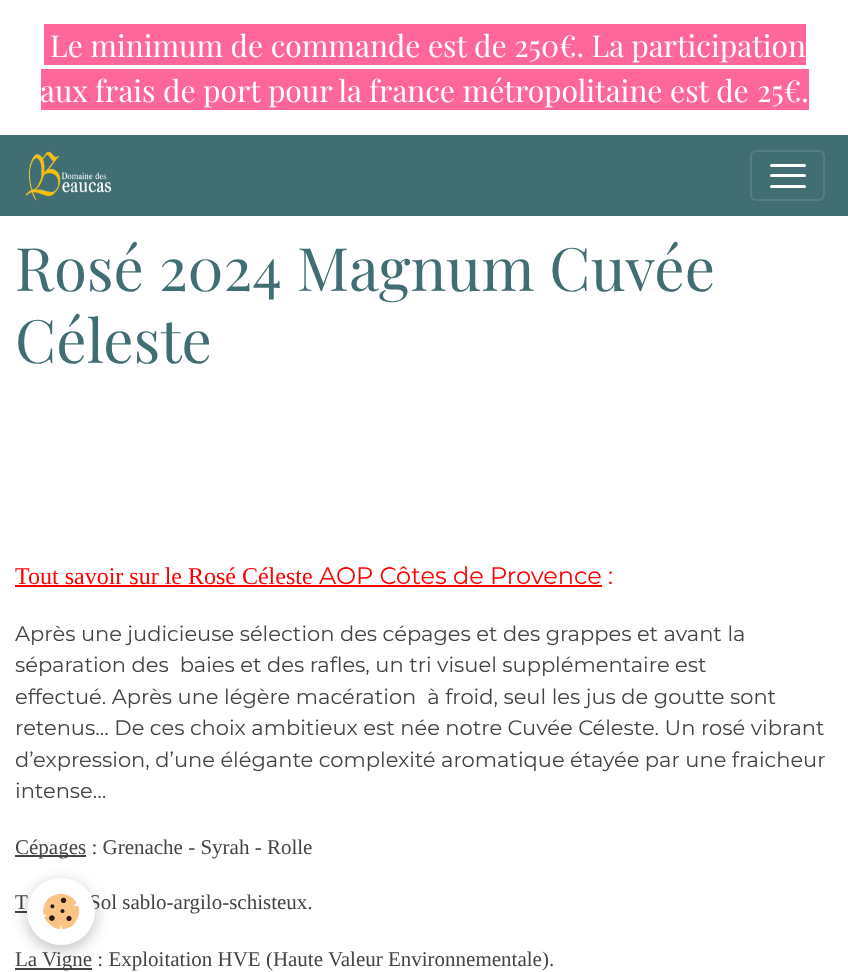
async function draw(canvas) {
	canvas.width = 848;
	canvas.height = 972;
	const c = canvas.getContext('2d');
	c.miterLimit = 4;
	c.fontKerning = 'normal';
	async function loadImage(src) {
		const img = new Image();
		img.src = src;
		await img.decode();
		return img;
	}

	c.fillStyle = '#fff';
	c.fillRect(0, 0, 848, 972);
	c.fillStyle = '#f69';
	c.fillRect(44, 24, 762, 41);
	c.font = '30px Playfair Display';
	c.fillStyle = '#fff';
	c.fillText('Le minimum de commande est de 250€. La participation', 50, 57);
	c.fillStyle = '#f69';
	c.fillRect(41, 69, 768, 41);
	c.fillStyle = '#fff';
	c.fillText('aux frais de port pour la france métropolitaine est de', 40, 102);
	c.fillText('25€.', 757, 102);
	c.fillStyle = '#416e73';
	c.fillRect(0, 135, 848, 81);
	c.drawImage(await loadImage('img1.png'), 25, 151, 87, 50);
	c.beginPath();
	c.roundRect(751, 151, 73, 49, 5);
	c.strokeStyle = '#547d81';
	c.lineWidth = 2;
	c.stroke();
	c.fillStyle = '#fff';
	c.beginPath();
	c.roundRect(770, 164, 36, 3, 1.5);
	c.fill();
	c.beginPath();
	c.roundRect(770, 174, 36, 3, 1.5);
	c.fill();
	c.beginPath();
	c.roundRect(770, 185, 36, 3, 1.5);
	c.fill();
	c.font = '60px Playfair Display';
	c.fillStyle = '#416e73';
	c.fillText('Rosé 2024 Magnum Cuvée', 15, 291);
	c.fillText('Céleste', 15, 363);
	c.font = '24px Liberation Serif';
	c.fillStyle = '#f00';
	c.fillText('Tout savoir sur le Rosé Céleste', 15, 584);
	c.fillRect(15, 585, 587, 2);
	c.font = '24px Montserrat';
	c.fillText('AOP Côtes de Provence :', 319, 584);
	c.font = '21px Montserrat';
	c.fillStyle = '#444';
	for (const [text, x, y] of [
		['Après une judicieuse sélection des cépages et des grappes et avant la', 15, 641],
		['séparation des  baies et des rafles, un tri visuel supplémentaire est', 15, 672],
		['effectué. Après une légère macération  à froid, seul les jus de goutte sont', 15, 704],
		['retenus… De ces choix ambitieux est née notre Cuvée Céleste. Un rosé vibrant', 15, 735],
		['d’expression, d’une élégante complexité aromatique étayée par une fraicheur', 15, 767],
		['intense…', 15, 798],
	]) {
		c.fillText(text, x, y);
	}
	c.fillRect(15, 855, 71, 2);
	c.font = '21px Liberation Serif';
	c.fillText('Cépages : Grenache - Syrah - Rolle', 15, 854);
	c.fillText('T', 15, 909);
	c.fillRect(15, 911, 13, 2);
	c.fillText('Sol sablo-argilo-schisteux.', 89, 909);
	c.fillRect(15, 968, 77, 2);
	c.fillText('La Vigne : Exploitation HVE (Haute Valeur Environnementale).', 15, 966);
	c.fillStyle = '#0000003d';
	c.filter = 'blur(7.5px)';
	c.beginPath();
	c.roundRect(27, 882, 68, 68, 34);
	c.fill();
	c.filter = 'none';
	c.fillStyle = '#fff';
	c.beginPath();
	c.roundRect(27, 878, 68, 67, 33.5);
	c.fill();
	c.drawImage(await loadImage('img2.png'), 43, 893, 37, 36);
}

draw(document.querySelector('canvas'));
